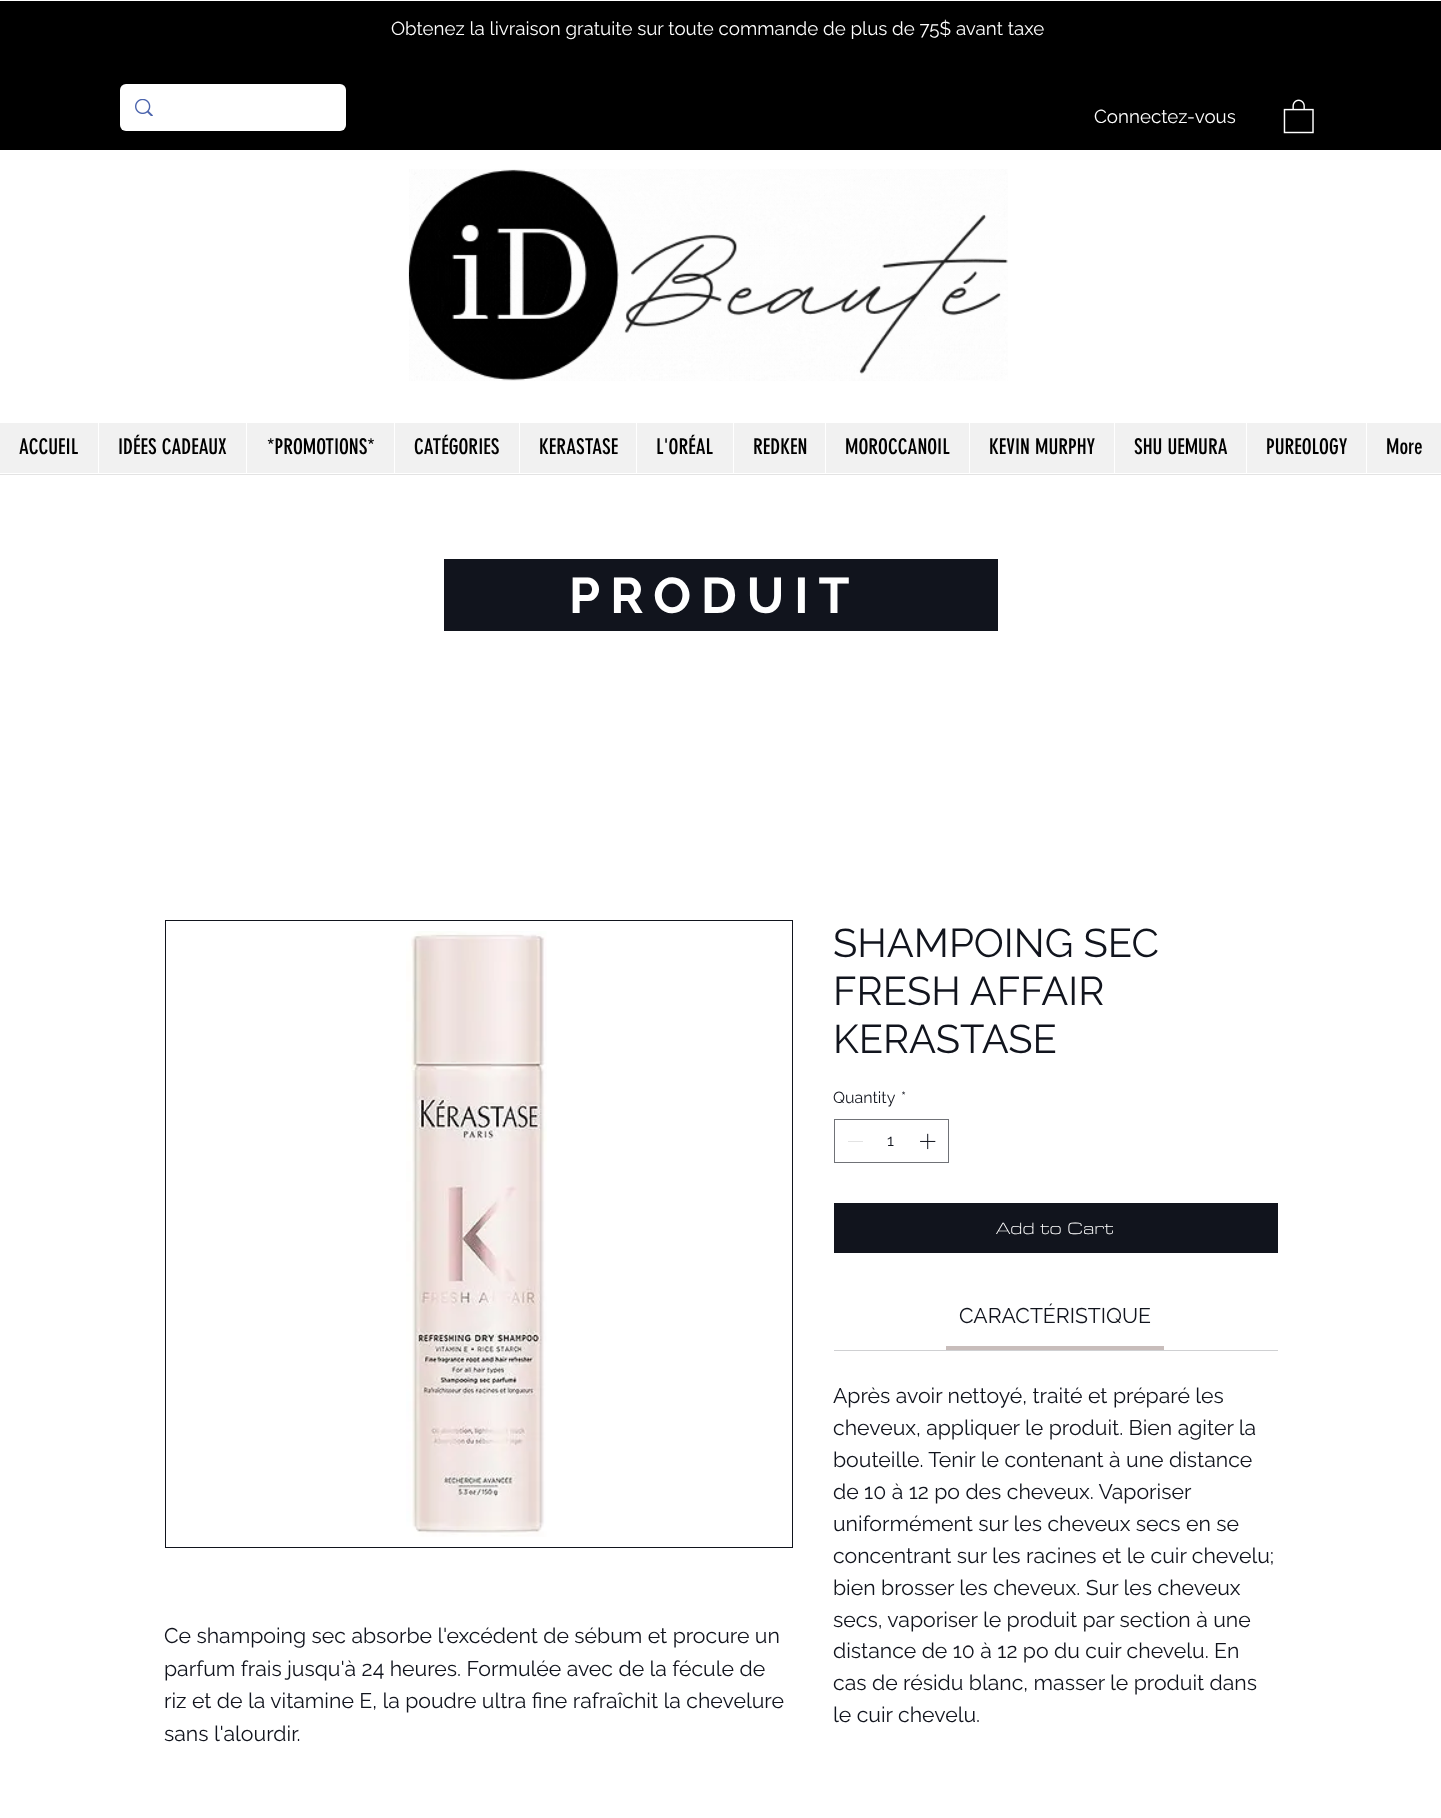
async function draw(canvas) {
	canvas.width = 1441;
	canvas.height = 1818;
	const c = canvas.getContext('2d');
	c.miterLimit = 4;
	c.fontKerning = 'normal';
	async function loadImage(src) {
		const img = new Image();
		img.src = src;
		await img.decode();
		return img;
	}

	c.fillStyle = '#fff';
	c.fillRect(0, 0, 1441, 1818);
	c.fillStyle = '#000';
	c.fillRect(0, 1, 1441, 149);
	c.font = '18.75px Raleway';
	c.fillStyle = '#fff';
	c.fillText('Obtenez la livraison gratuite sur toute commande de plus de 75$ avant taxe', 391, 35);
	c.beginPath();
	c.roundRect(120, 84, 226, 47, 6);
	c.fill();
	c.drawImage(await loadImage('img1.png'), 135, 99, 18, 17);
	c.fillText('Connectez-vous', 1094, 123);
	c.drawImage(await loadImage('img2.png'), 1283, 99, 31, 35);
	c.drawImage(await loadImage('img3.png'), 408, 169, 600, 212);
	c.fillStyle = '#f1f1f1';
	c.fillRect(0, 423, 1441, 50);
	c.font = '21.25px "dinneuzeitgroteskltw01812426"';
	c.fillStyle = '#000';
	c.fillText('ACCUEIL', 19, 454);
	c.fillStyle = '#fff';
	c.fillRect(98, 423, 1, 50);
	c.fillStyle = '#000';
	c.fillText('IDÉES CADEAUX', 118, 454);
	c.fillStyle = '#fff';
	c.fillRect(246, 423, 1, 50);
	c.fillStyle = '#000';
	c.fillText('*PROMOTIONS*', 267, 454);
	c.fillStyle = '#fff';
	c.fillRect(394, 423, 1, 50);
	c.fillStyle = '#000';
	c.fillText('CATÉGORIES', 414, 454);
	c.fillStyle = '#fff';
	c.fillRect(519, 423, 1, 50);
	c.fillStyle = '#000';
	c.fillText('KERASTASE', 539, 454);
	c.fillStyle = '#fff';
	c.fillRect(636, 423, 1, 50);
	c.fillStyle = '#000';
	c.fillText('L\'ORÉAL', 656, 454);
	c.fillStyle = '#fff';
	c.fillRect(733, 423, 1, 50);
	c.fillStyle = '#000';
	c.fillText('REDKEN', 753, 454);
	c.fillStyle = '#fff';
	c.fillRect(825, 423, 1, 50);
	c.fillStyle = '#000';
	c.fillText('MOROCCANOIL', 845, 454);
	c.fillStyle = '#fff';
	c.fillRect(969, 423, 1, 50);
	c.fillStyle = '#000';
	c.fillText('KEVIN MURPHY', 989, 454);
	c.fillStyle = '#fff';
	c.fillRect(1114, 423, 1, 50);
	c.fillStyle = '#000';
	c.fillText('SHU UEMURA', 1134, 454);
	c.fillStyle = '#fff';
	c.fillRect(1246, 423, 1, 50);
	c.fillStyle = '#000';
	c.fillText('PUREOLOGY', 1266, 454);
	c.fillStyle = '#fff';
	c.fillRect(1366, 423, 1, 50);
	c.fillStyle = '#000';
	c.fillText('More', 1386, 454);
	c.fillStyle = '#e3e3e3';
	c.fillRect(0, 474, 1441, 1);
	c.fillStyle = '#11141d';
	c.fillRect(444, 559, 554, 72);
	c.letterSpacing = '10px';
	c.font = 'bold 50px Raleway';
	c.fillStyle = '#fff';
	c.fillText('PRODUIT', 569, 613);
	c.strokeStyle = '#11141d';
	c.strokeRect(165.5, 920.5, 627, 627);
	c.drawImage(await loadImage('img4.png'), 406, 931, 141, 606);
	c.letterSpacing = '0px';
	c.font = '21.25px Raleway';
	c.fillStyle = '#11141d';
	for (const [text, x, y] of [
		['Ce shampoing sec absorbe l\'excédent de sébum et procure un', 164, 1643],
		['parfum frais jusqu\'à 24 heures. Formulée avec de la fécule de', 164, 1676],
		['riz et de la vitamine E, la poudre ultra fine rafraîchit la chevelure', 164, 1708],
		['sans l\'alourdir.', 164, 1741],
	]) {
		c.fillText(text, x, y);
	}
	c.font = '40px Raleway';
	for (const [text, x, y] of [
		['SHAMPOING SEC', 833, 957],
		['FRESH AFFAIR', 833, 1005],
		['KERASTASE', 833, 1053],
	]) {
		c.fillText(text, x, y);
	}
	c.font = '16px Raleway';
	c.fillText('Quantity', 833, 1103);
	c.fillText('*', 901, 1103);
	c.strokeStyle = '#707277';
	c.strokeRect(834.5, 1119.5, 114, 43);
	c.fillStyle = '#e3e3e3';
	c.fillRect(848, 1141, 15, 1);
	c.fillStyle = '#11141d';
	c.fillText('1', 887, 1146);
	c.drawImage(await loadImage('img5.png'), 920, 1133, 16, 17);
	c.fillRect(834, 1203, 444, 50);
	c.font = '300 20px "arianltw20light"';
	c.fillStyle = '#fff';
	c.fillText('Add to Cart', 996, 1234);
	c.fillStyle = '#cfd0d2';
	c.fillRect(834, 1350, 444, 1);
	c.fillStyle = '#c8bdbb';
	c.fillRect(946, 1346, 218, 4);
	c.font = '21.25px Raleway';
	c.fillStyle = '#11141d';
	for (const [text, x, y] of [
		['CARACTÉRISTIQUE', 959, 1323],
		['Après avoir nettoyé, traité et préparé les', 833, 1403],
		['cheveux, appliquer le produit. Bien agiter la', 833, 1435],
		['bouteille. Tenir le contenant à une distance', 833, 1467],
		['de 10 à 12 po des cheveux. Vaporiser', 833, 1499],
		['uniformément sur les cheveux secs en se', 833, 1531],
		['concentrant sur les racines et le cuir chevelu;', 833, 1563],
		['bien brosser les cheveux. Sur les cheveux', 833, 1595],
		['secs, vaporiser le produit par section à une', 833, 1627],
		['distance de 10 à 12 po du cuir chevelu. En', 833, 1658],
		['cas de résidu blanc, masser le produit dans', 833, 1690],
		['le cuir chevelu.', 833, 1722],
	]) {
		c.fillText(text, x, y);
	}
}

draw(document.querySelector('canvas'));
